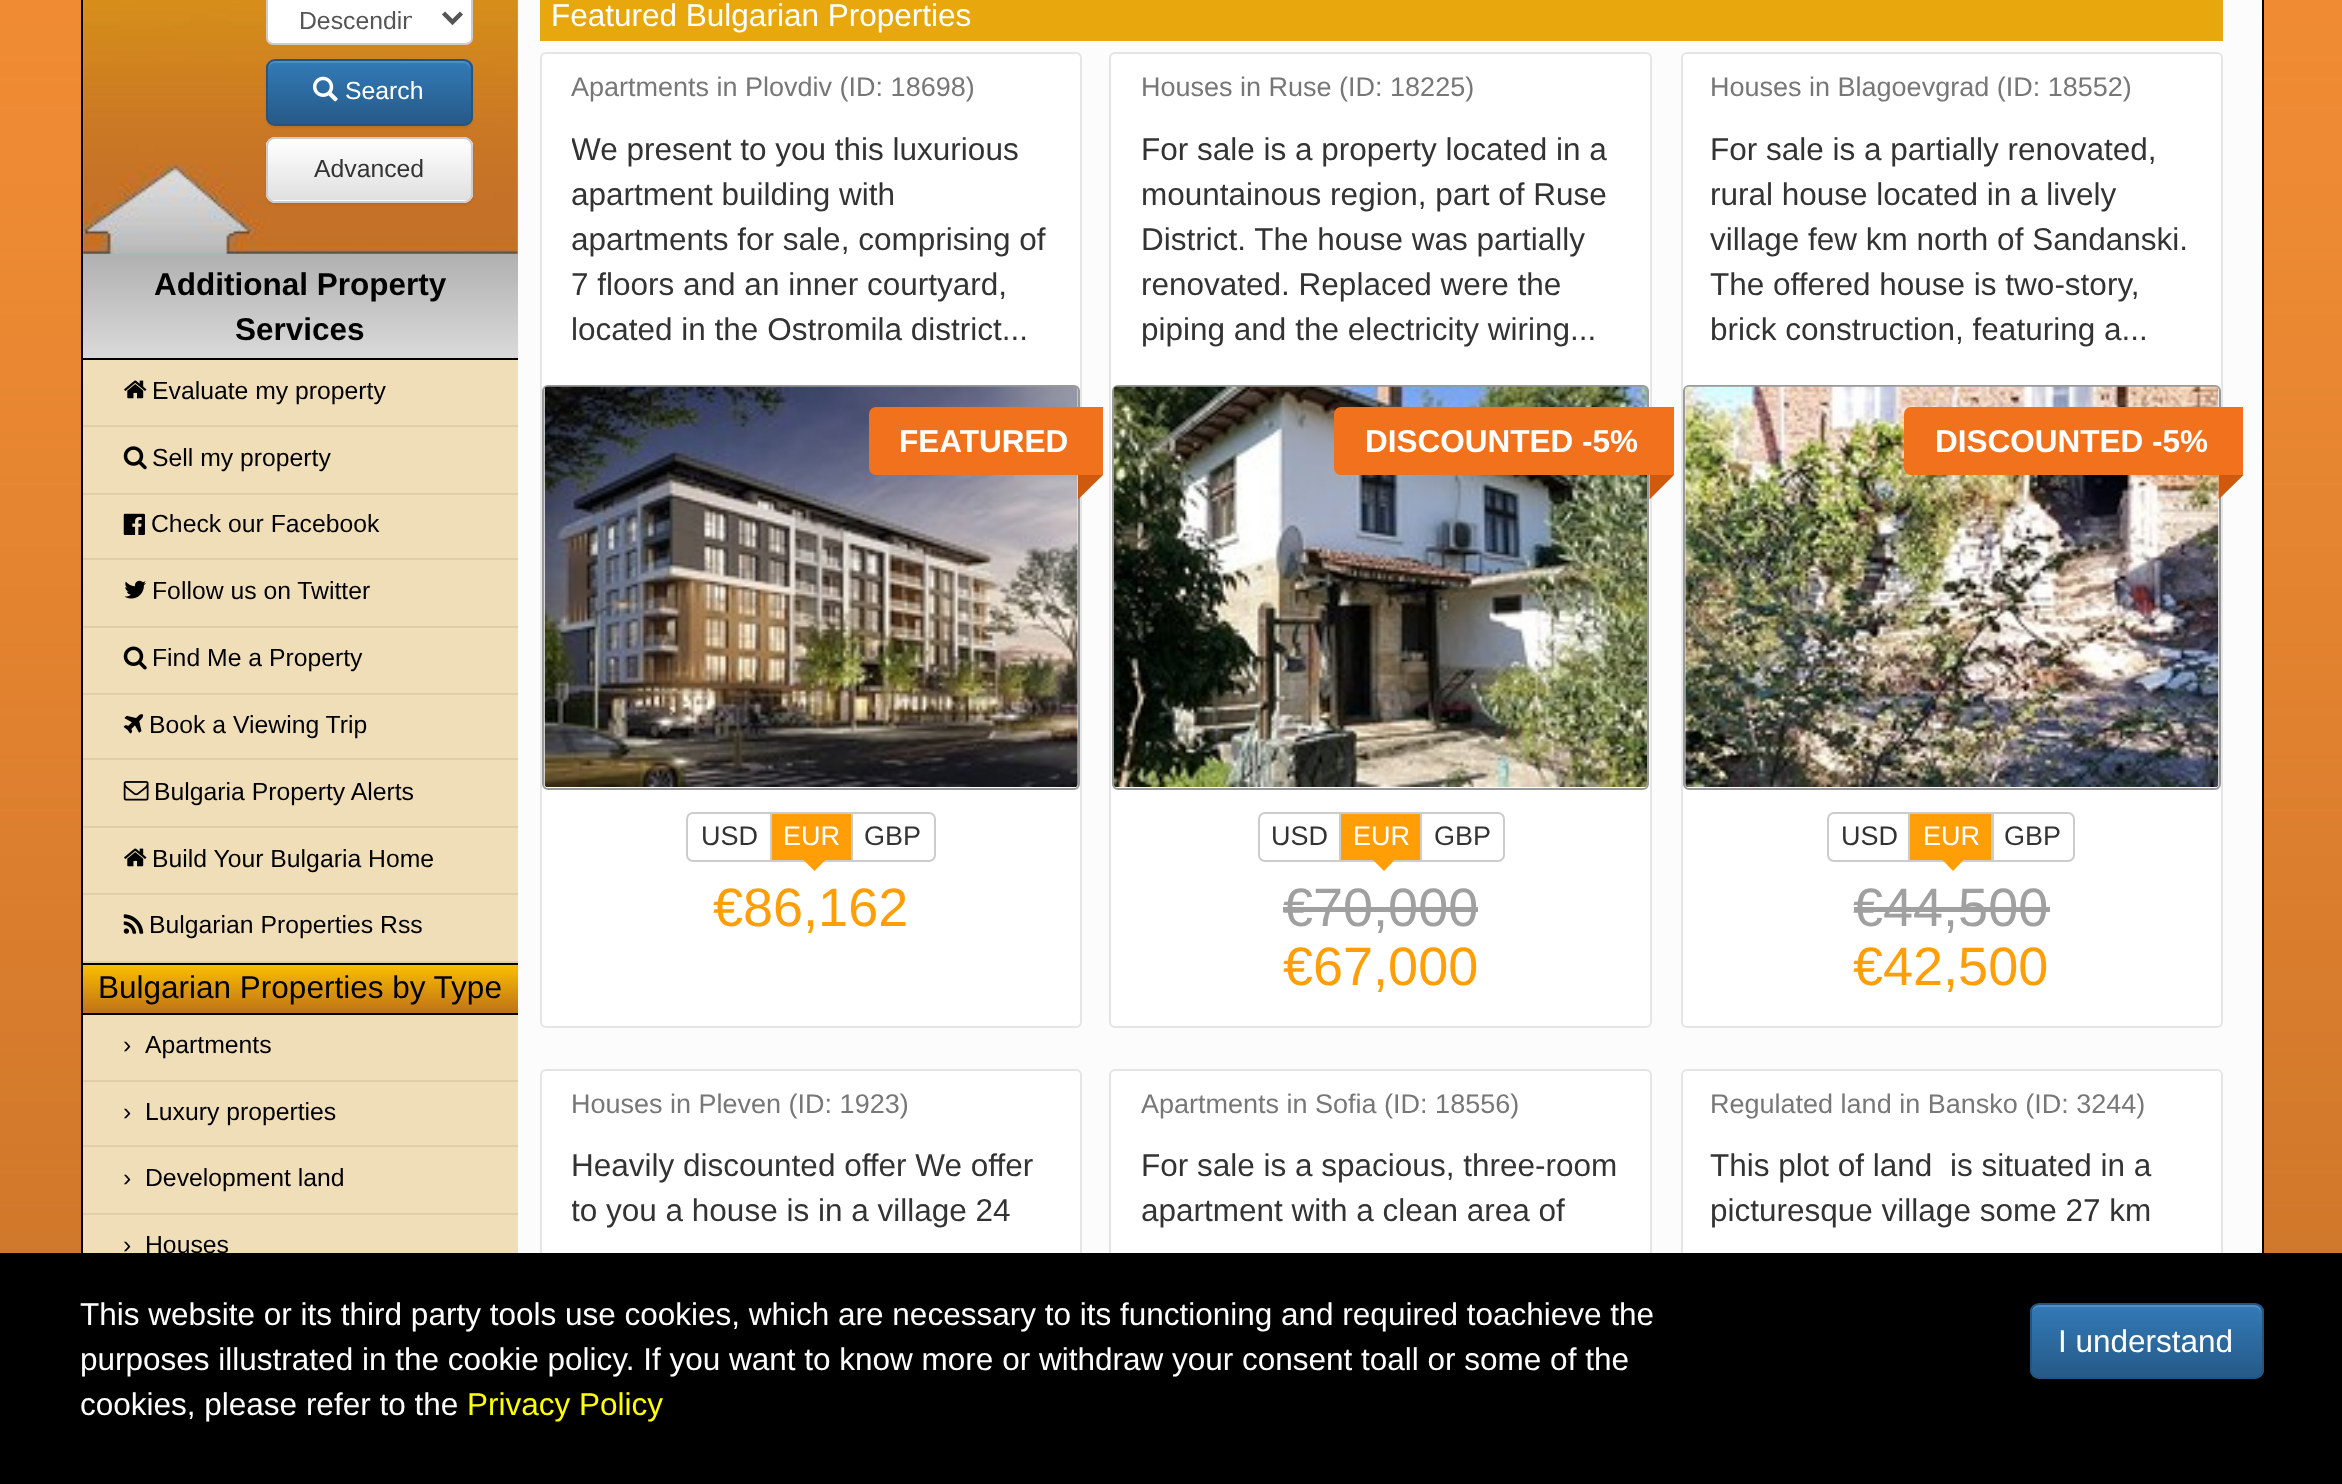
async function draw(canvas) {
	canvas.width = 2342;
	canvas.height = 1484;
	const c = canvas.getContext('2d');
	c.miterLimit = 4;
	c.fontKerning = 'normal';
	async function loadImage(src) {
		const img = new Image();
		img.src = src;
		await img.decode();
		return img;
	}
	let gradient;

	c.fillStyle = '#fff';
	c.fillRect(0, 0, 2342, 1484);
	c.drawImage(await loadImage('img1.png'), 0, 0, 2342, 1253);
	c.fillStyle = '#fcfcfc';
	c.fillRect(518, 0, 1744, 1253);
	c.strokeStyle = '#000';
	c.lineWidth = 2;
	c.strokeRect(82, -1, 2181, 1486);
	c.fillStyle = '#f0deb8';
	c.fillRect(83, 360, 435, 893);
	c.fillStyle = '#e8a80d';
	c.fillRect(83, 0, 435, 254);
	c.drawImage(await loadImage('img2.png'), 83, 0, 435, 254);
	c.fillStyle = '#fff';
	c.beginPath();
	c.roundRect(267, -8, 205, 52, 6);
	c.fill();
	c.strokeStyle = '#ccc';
	c.stroke();
	c.beginPath();
	c.moveTo(443.5, 13);
	c.lineTo(452.5, 22);
	c.lineTo(461.5, 13);
	c.strokeStyle = '#555';
	c.lineWidth = 4.5;
	c.stroke();
	c.save();
	c.beginPath();
	c.rect(299, 5, 113, 31);
	c.clip();
	c.font = '24.75px Liberation Sans';
	c.fillStyle = '#555';
	c.fillText('Descendin', 299, 29);
	c.restore();
	c.fillStyle = '#00000012';
	c.filter = 'blur(1px)';
	c.beginPath();
	c.roundRect(266, 61, 207, 67, 9);
	c.fill();
	c.filter = 'none';
	c.save();
	c.beginPath();
	c.roundRect(266, 59, 207, 67, 9);
	c.clip();
	gradient = c.createLinearGradient(369, 61, 369, 124);
	gradient.addColorStop(0, '#337ab7');
	gradient.addColorStop(1, '#265a88');
	c.fillStyle = gradient;
	c.fillRect(266, 61, 207, 63);
	c.restore();
	c.fillStyle = '#ffffff26';
	c.beginPath();
	c.moveTo(274, 63);
	c.lineTo(464, 63);
	c.bezierCurveTo(467, 63, 470, 66, 470, 70);
	c.lineTo(470, 68);
	c.bezierCurveTo(470, 64, 467, 61, 463, 61);
	c.lineTo(275, 61);
	c.bezierCurveTo(271, 61, 268, 64, 268, 68);
	c.lineTo(268, 70);
	c.bezierCurveTo(268, 66, 271, 63, 274, 63);
	c.closePath();
	c.fill();
	c.beginPath();
	c.roundRect(267, 60, 205, 65, 8);
	c.strokeStyle = '#245580';
	c.lineWidth = 2;
	c.stroke();
	c.drawImage(await loadImage('img3.png'), 312, 76, 26, 26);
	c.font = '24.75px Liberation Sans';
	c.fillStyle = '#fff';
	c.fillText('Search', 345, 99);
	c.fillStyle = '#00000012';
	c.filter = 'blur(1px)';
	c.beginPath();
	c.roundRect(266, 140, 207, 65, 9);
	c.fill();
	c.filter = 'none';
	c.fillStyle = '#fff';
	c.beginPath();
	c.roundRect(266, 137, 207, 66, 9);
	c.fill();
	c.save();
	c.beginPath();
	c.roundRect(266, 137, 207, 66, 9);
	c.clip();
	gradient = c.createLinearGradient(369, 139, 369, 200);
	gradient.addColorStop(0, '#fff');
	gradient.addColorStop(1, '#e0e0e0');
	c.fillStyle = gradient;
	c.fillRect(266, 140, 207, 60);
	c.restore();
	c.beginPath();
	c.roundRect(267, 138, 205, 64, 8);
	c.strokeStyle = '#ccc';
	c.stroke();
	c.fillStyle = '#333';
	c.fillText('Advanced', 314, 177);
	gradient = c.createLinearGradient(300, 254, 300, 358);
	gradient.addColorStop(0, '#b0b0b0');
	gradient.addColorStop(1, '#dadada');
	c.fillStyle = gradient;
	c.fillRect(83, 254, 435, 104);
	c.fillStyle = '#000';
	c.fillRect(83, 358, 435, 2);
	c.font = 'bold 31.5px Liberation Sans';
	c.fillText('Additional Property', 154, 295);
	c.fillText('Services', 235, 340);
	c.fillStyle = '#e0cea8';
	c.fillRect(83, 425, 435, 2);
	c.drawImage(await loadImage('img4.png'), 124, 380, 23, 19);
	c.font = '24.75px Liberation Sans';
	c.fillStyle = '#000';
	c.fillText('Evaluate my property', 152, 399);
	c.fillStyle = '#e0cea8';
	c.fillRect(83, 493, 435, 2);
	c.drawImage(await loadImage('img5.png'), 123, 446, 24, 24);
	c.fillStyle = '#000';
	c.fillText('Sell my property', 152, 466);
	c.fillStyle = '#e0cea8';
	c.fillRect(83, 558, 435, 2);
	c.drawImage(await loadImage('img6.png'), 123, 513, 22, 22);
	c.fillStyle = '#000';
	c.fillText('Check our Facebook', 151, 532);
	c.fillStyle = '#e0cea8';
	c.fillRect(83, 626, 435, 2);
	c.drawImage(await loadImage('img7.png'), 124, 580, 22, 19);
	c.fillStyle = '#000';
	c.fillText('Follow us on Twitter', 152, 599);
	c.fillStyle = '#e0cea8';
	c.fillRect(83, 693, 435, 2);
	c.drawImage(await loadImage('img8.png'), 123, 646, 24, 24);
	c.fillStyle = '#000';
	c.fillText('Find Me a Property', 152, 666);
	c.fillStyle = '#e0cea8';
	c.fillRect(83, 758, 435, 2);
	c.drawImage(await loadImage('img9.png'), 123, 714, 21, 20);
	c.fillStyle = '#000';
	c.fillText('Book a Viewing Trip', 149, 733);
	c.fillStyle = '#e0cea8';
	c.fillRect(83, 826, 435, 2);
	c.drawImage(await loadImage('img10.png'), 123, 781, 26, 20);
	c.fillStyle = '#000';
	c.fillText('Bulgaria Property Alerts', 154, 800);
	c.fillStyle = '#e0cea8';
	c.fillRect(83, 893, 435, 2);
	c.drawImage(await loadImage('img4.png'), 124, 848, 23, 19);
	c.fillStyle = '#000';
	c.fillText('Build Your Bulgaria Home', 152, 867);
	c.fillStyle = '#e0cea8';
	c.fillRect(83, 961, 435, 2);
	c.drawImage(await loadImage('img11.png'), 123, 914, 21, 20);
	c.fillStyle = '#000';
	c.fillText('Bulgarian Properties Rss', 149, 933);
	gradient = c.createLinearGradient(300, 965, 300, 1013);
	gradient.addColorStop(0, '#fbbe00');
	gradient.addColorStop(1, '#c07218');
	c.fillStyle = gradient;
	c.fillRect(83, 965, 435, 48);
	c.fillStyle = '#000';
	c.fillRect(83, 963, 435, 2);
	c.fillRect(83, 1013, 435, 2);
	c.font = '31.5px Liberation Sans';
	c.fillText('Bulgarian Properties by Type', 98, 998);
	c.fillStyle = '#e0cea8';
	c.fillRect(83, 1080, 435, 2);
	c.font = '24.75px Liberation Sans';
	c.fillStyle = '#000';
	c.fillText('›', 123, 1053);
	c.fillText('Apartments', 145, 1053);
	c.fillStyle = '#e0cea8';
	c.fillRect(83, 1145, 435, 2);
	c.fillStyle = '#000';
	c.fillText('›', 123, 1120);
	c.fillText('Luxury properties', 145, 1120);
	c.fillStyle = '#e0cea8';
	c.fillRect(83, 1213, 435, 2);
	c.fillStyle = '#000';
	for (const [text, x, y] of [
		['›', 123, 1186],
		['Development land', 145, 1186],
		['›', 123, 1253],
		['Houses', 145, 1253],
	]) {
		c.fillText(text, x, y);
	}
	c.fillStyle = '#e8a80d';
	c.fillRect(540, 0, 1683, 41);
	c.font = '31.5px Liberation Sans';
	c.fillStyle = '#fff';
	c.fillText('Featured Bulgarian Properties', 551, 26);
	c.beginPath();
	c.roundRect(541, 53, 540, 974, 5);
	c.fill();
	c.strokeStyle = '#e5e5e5';
	c.stroke();
	c.font = '27px Liberation Sans';
	c.fillStyle = '#777';
	c.fillText('Apartments in Plovdiv (ID: 18698)', 571, 96);
	c.save();
	c.beginPath();
	c.rect(572, 126, 479, 225);
	c.clip();
	c.font = '31.5px Liberation Sans';
	c.fillStyle = '#333';
	c.fillText('We present to you this luxurious', 571, 160);
	c.restore();
	c.font = '31.5px Liberation Sans';
	c.fillStyle = '#333';
	for (const [text, x, y] of [
		['apartment building with', 571, 205],
		['apartments for sale, comprising of', 571, 250],
		['7 floors and an inner courtyard,', 571, 295],
		['located in the Ostromila district...', 571, 340],
	]) {
		c.fillText(text, x, y);
	}
	c.beginPath();
	c.roundRect(543, 386, 536, 403, 5);
	c.strokeStyle = '#999';
	c.stroke();
	c.drawImage(await loadImage('img12.png'), 544, 386, 534, 401);
	c.fillStyle = '#f2711c';
	c.beginPath();
	c.roundRect(869, 407, 234, 68, [7, 0, 0, 7]);
	c.fill();
	c.font = 'bold 31.5px Liberation Sans';
	c.fillStyle = '#fff';
	c.fillText('FEATURED', 899, 452);
	c.fillStyle = '#cf590c';
	c.beginPath();
	c.moveTo(1078, 475);
	c.lineTo(1103, 475);
	c.lineTo(1078, 499.5);
	c.closePath();
	c.fill();
	c.beginPath();
	c.roundRect(687, 813, 84, 48, [6, 0, 0, 6]);
	c.strokeStyle = '#ccc';
	c.stroke();
	c.font = '27px Liberation Sans';
	c.fillStyle = '#333';
	c.fillText('USD', 701, 845);
	c.fillStyle = '#ff9e07';
	c.beginPath();
	c.rect(771, 813, 81, 48);
	c.fill();
	c.stroke();
	c.fillStyle = '#fff';
	c.fillText('EUR', 783, 845);
	c.fillStyle = '#ff9e07';
	c.beginPath();
	c.moveTo(803, 859.5);
	c.lineTo(826, 859.5);
	c.lineTo(814.5, 871);
	c.closePath();
	c.fill();
	c.beginPath();
	c.roundRect(852, 813, 83, 48, [0, 6, 6, 0]);
	c.stroke();
	c.fillStyle = '#333';
	c.fillText('GBP', 864, 845);
	c.font = '54px Liberation Sans';
	c.fillStyle = '#ff9e07';
	c.fillText('€86,162', 713, 926);
	c.fillStyle = '#fff';
	c.beginPath();
	c.roundRect(1110, 53, 541, 974, 5);
	c.fill();
	c.strokeStyle = '#e5e5e5';
	c.stroke();
	c.font = '27px Liberation Sans';
	c.fillStyle = '#777';
	c.fillText('Houses in Ruse (ID: 18225)', 1141, 96);
	c.font = '31.5px Liberation Sans';
	c.fillStyle = '#333';
	for (const [text, x, y] of [
		['For sale is a property located in a', 1141, 160],
		['mountainous region, part of Ruse', 1141, 205],
		['District. The house was partially', 1141, 250],
		['renovated. Replaced were the', 1141, 295],
		['piping and the electricity wiring...', 1141, 340],
	]) {
		c.fillText(text, x, y);
	}
	c.beginPath();
	c.roundRect(1113, 386, 535, 403, 5);
	c.strokeStyle = '#999';
	c.stroke();
	c.drawImage(await loadImage('img13.png'), 1113, 386, 534, 401);
	c.fillStyle = '#f2711c';
	c.beginPath();
	c.roundRect(1334, 407, 340, 68, [7, 0, 0, 7]);
	c.fill();
	c.font = 'bold 31.5px Liberation Sans';
	c.fillStyle = '#fff';
	c.fillText('DISCOUNTED -5%', 1365, 452);
	c.fillStyle = '#cf590c';
	c.beginPath();
	c.moveTo(1649.5, 475);
	c.lineTo(1674, 475);
	c.lineTo(1649.5, 499.5);
	c.closePath();
	c.fill();
	c.beginPath();
	c.roundRect(1259, 813, 81, 48, [6, 0, 0, 6]);
	c.strokeStyle = '#ccc';
	c.stroke();
	c.font = '27px Liberation Sans';
	c.fillStyle = '#333';
	c.fillText('USD', 1271, 845);
	c.fillStyle = '#ff9e07';
	c.beginPath();
	c.rect(1340, 813, 81, 48);
	c.fill();
	c.stroke();
	c.fillStyle = '#fff';
	c.fillText('EUR', 1353, 845);
	c.fillStyle = '#ff9e07';
	c.beginPath();
	c.moveTo(1372.5, 859.5);
	c.lineTo(1395, 859.5);
	c.lineTo(1384, 871);
	c.closePath();
	c.fill();
	c.beginPath();
	c.roundRect(1421, 813, 83, 48, [0, 6, 6, 0]);
	c.stroke();
	c.fillStyle = '#333';
	c.fillText('GBP', 1434, 845);
	c.font = '54px Liberation Sans';
	c.fillStyle = '#a0a0a0';
	c.fillText('€70,000', 1283, 926);
	c.fillRect(1283, 907, 195, 5);
	c.fillStyle = '#ff9e07';
	c.fillText('€67,000', 1283, 985);
	c.fillStyle = '#fff';
	c.beginPath();
	c.roundRect(1682, 53, 540, 974, 5);
	c.fill();
	c.strokeStyle = '#e5e5e5';
	c.stroke();
	c.font = '27px Liberation Sans';
	c.fillStyle = '#777';
	c.fillText('Houses in Blagoevgrad (ID: 18552)', 1710, 96);
	c.font = '31.5px Liberation Sans';
	c.fillStyle = '#333';
	for (const [text, x, y] of [
		['For sale is a partially renovated,', 1710, 160],
		['rural house located in a lively', 1710, 205],
		['village few km north of Sandanski.', 1710, 250],
		['The offered house is two-story,', 1710, 295],
		['brick construction, featuring a...', 1710, 340],
	]) {
		c.fillText(text, x, y);
	}
	c.beginPath();
	c.roundRect(1684, 386, 536, 403, 5);
	c.strokeStyle = '#999';
	c.stroke();
	c.drawImage(await loadImage('img14.png'), 1685, 386, 534, 401);
	c.fillStyle = '#f2711c';
	c.beginPath();
	c.roundRect(1904, 407, 339, 68, [7, 0, 0, 7]);
	c.fill();
	c.font = 'bold 31.5px Liberation Sans';
	c.fillStyle = '#fff';
	c.fillText('DISCOUNTED -5%', 1935, 452);
	c.fillStyle = '#cf590c';
	c.beginPath();
	c.moveTo(2218.5, 475);
	c.lineTo(2243.5, 475);
	c.lineTo(2218.5, 499.5);
	c.closePath();
	c.fill();
	c.beginPath();
	c.roundRect(1828, 813, 81, 48, [6, 0, 0, 6]);
	c.strokeStyle = '#ccc';
	c.stroke();
	c.font = '27px Liberation Sans';
	c.fillStyle = '#333';
	c.fillText('USD', 1841, 845);
	c.fillStyle = '#ff9e07';
	c.fillRect(1910, 814, 81, 46);
	c.strokeRect(1909, 813, 84, 48);
	c.fillStyle = '#fff';
	c.fillText('EUR', 1923, 845);
	c.fillStyle = '#ff9e07';
	c.beginPath();
	c.moveTo(1942, 859.5);
	c.lineTo(1964, 859.5);
	c.lineTo(1953, 871);
	c.closePath();
	c.fill();
	c.beginPath();
	c.roundRect(1992, 813, 82, 48, [0, 6, 6, 0]);
	c.stroke();
	c.fillStyle = '#333';
	c.fillText('GBP', 2004, 845);
	c.font = '54px Liberation Sans';
	c.fillStyle = '#a0a0a0';
	c.fillText('€44,500', 1853, 926);
	c.fillRect(1854, 907, 196, 5);
	c.fillStyle = '#ff9e07';
	c.fillText('€42,500', 1853, 985);
	c.fillStyle = '#fff';
	c.beginPath();
	c.roundRect(541, 1070, 540, 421, 5);
	c.fill();
	c.strokeStyle = '#e5e5e5';
	c.stroke();
	c.font = '27px Liberation Sans';
	c.fillStyle = '#777';
	c.fillText('Houses in Pleven (ID: 1923)', 571, 1113);
	c.font = '31.5px Liberation Sans';
	c.fillStyle = '#333';
	c.fillText('Heavily discounted offer We offer', 571, 1176);
	c.save();
	c.beginPath();
	c.rect(572, 1143, 479, 225);
	c.clip();
	c.fillText('to you a house is in a village 24', 571, 1221);
	c.restore();
	c.fillStyle = '#fff';
	c.beginPath();
	c.roundRect(1110, 1070, 541, 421, 5);
	c.fill();
	c.stroke();
	c.font = '27px Liberation Sans';
	c.fillStyle = '#777';
	c.fillText('Apartments in Sofia (ID: 18556)', 1141, 1113);
	c.font = '31.5px Liberation Sans';
	c.fillStyle = '#333';
	c.fillText('For sale is a spacious, three-room', 1141, 1176);
	c.fillText('apartment with a clean area of', 1141, 1221);
	c.fillStyle = '#fff';
	c.beginPath();
	c.roundRect(1682, 1070, 540, 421, 5);
	c.fill();
	c.stroke();
	c.font = '27px Liberation Sans';
	c.fillStyle = '#777';
	c.fillText('Regulated land in Bansko (ID: 3244)', 1710, 1113);
	c.font = '31.5px Liberation Sans';
	c.fillStyle = '#333';
	c.fillText('This plot of land  is situated in a', 1710, 1176);
	c.fillText('picturesque village some 27 km', 1710, 1221);
	c.fillStyle = '#000';
	c.fillRect(0, 1253, 2342, 231);
	c.fillStyle = '#fff';
	for (const [text, x, y] of [
		['This website or its third party tools use cookies, which are necessary to its functioning and required toachieve the', 80, 1325],
		['purposes illustrated in the cookie policy. If you want to know more or withdraw your consent toall or some of the', 80, 1370],
		['cookies, please refer to the', 80, 1415],
	]) {
		c.fillText(text, x, y);
	}
	c.fillStyle = '#ff0';
	c.fillText('Privacy Policy', 467, 1415);
	c.save();
	c.beginPath();
	c.roundRect(2030, 1303, 234, 76, 9);
	c.clip();
	gradient = c.createLinearGradient(2147, 1305, 2147, 1377);
	gradient.addColorStop(0, '#337ab7');
	gradient.addColorStop(1, '#265a88');
	c.fillStyle = gradient;
	c.fillRect(2030, 1305, 234, 72);
	c.restore();
	c.fillStyle = '#ffffff26';
	c.beginPath();
	c.moveTo(2038, 1307);
	c.lineTo(2254, 1307);
	c.bezierCurveTo(2258, 1307, 2261, 1310, 2261, 1314);
	c.lineTo(2261, 1312);
	c.bezierCurveTo(2261, 1308, 2258, 1305, 2254, 1305);
	c.lineTo(2039, 1305);
	c.bezierCurveTo(2035, 1305, 2032, 1308, 2032, 1312);
	c.lineTo(2032, 1314);
	c.bezierCurveTo(2032, 1310, 2035, 1307, 2038, 1307);
	c.closePath();
	c.fill();
	c.beginPath();
	c.roundRect(2031, 1304, 232, 74, 8);
	c.strokeStyle = '#245580';
	c.stroke();
	c.fillStyle = '#fff';
	c.fillText('I understand', 2058, 1352);
}

draw(document.querySelector('canvas'));
